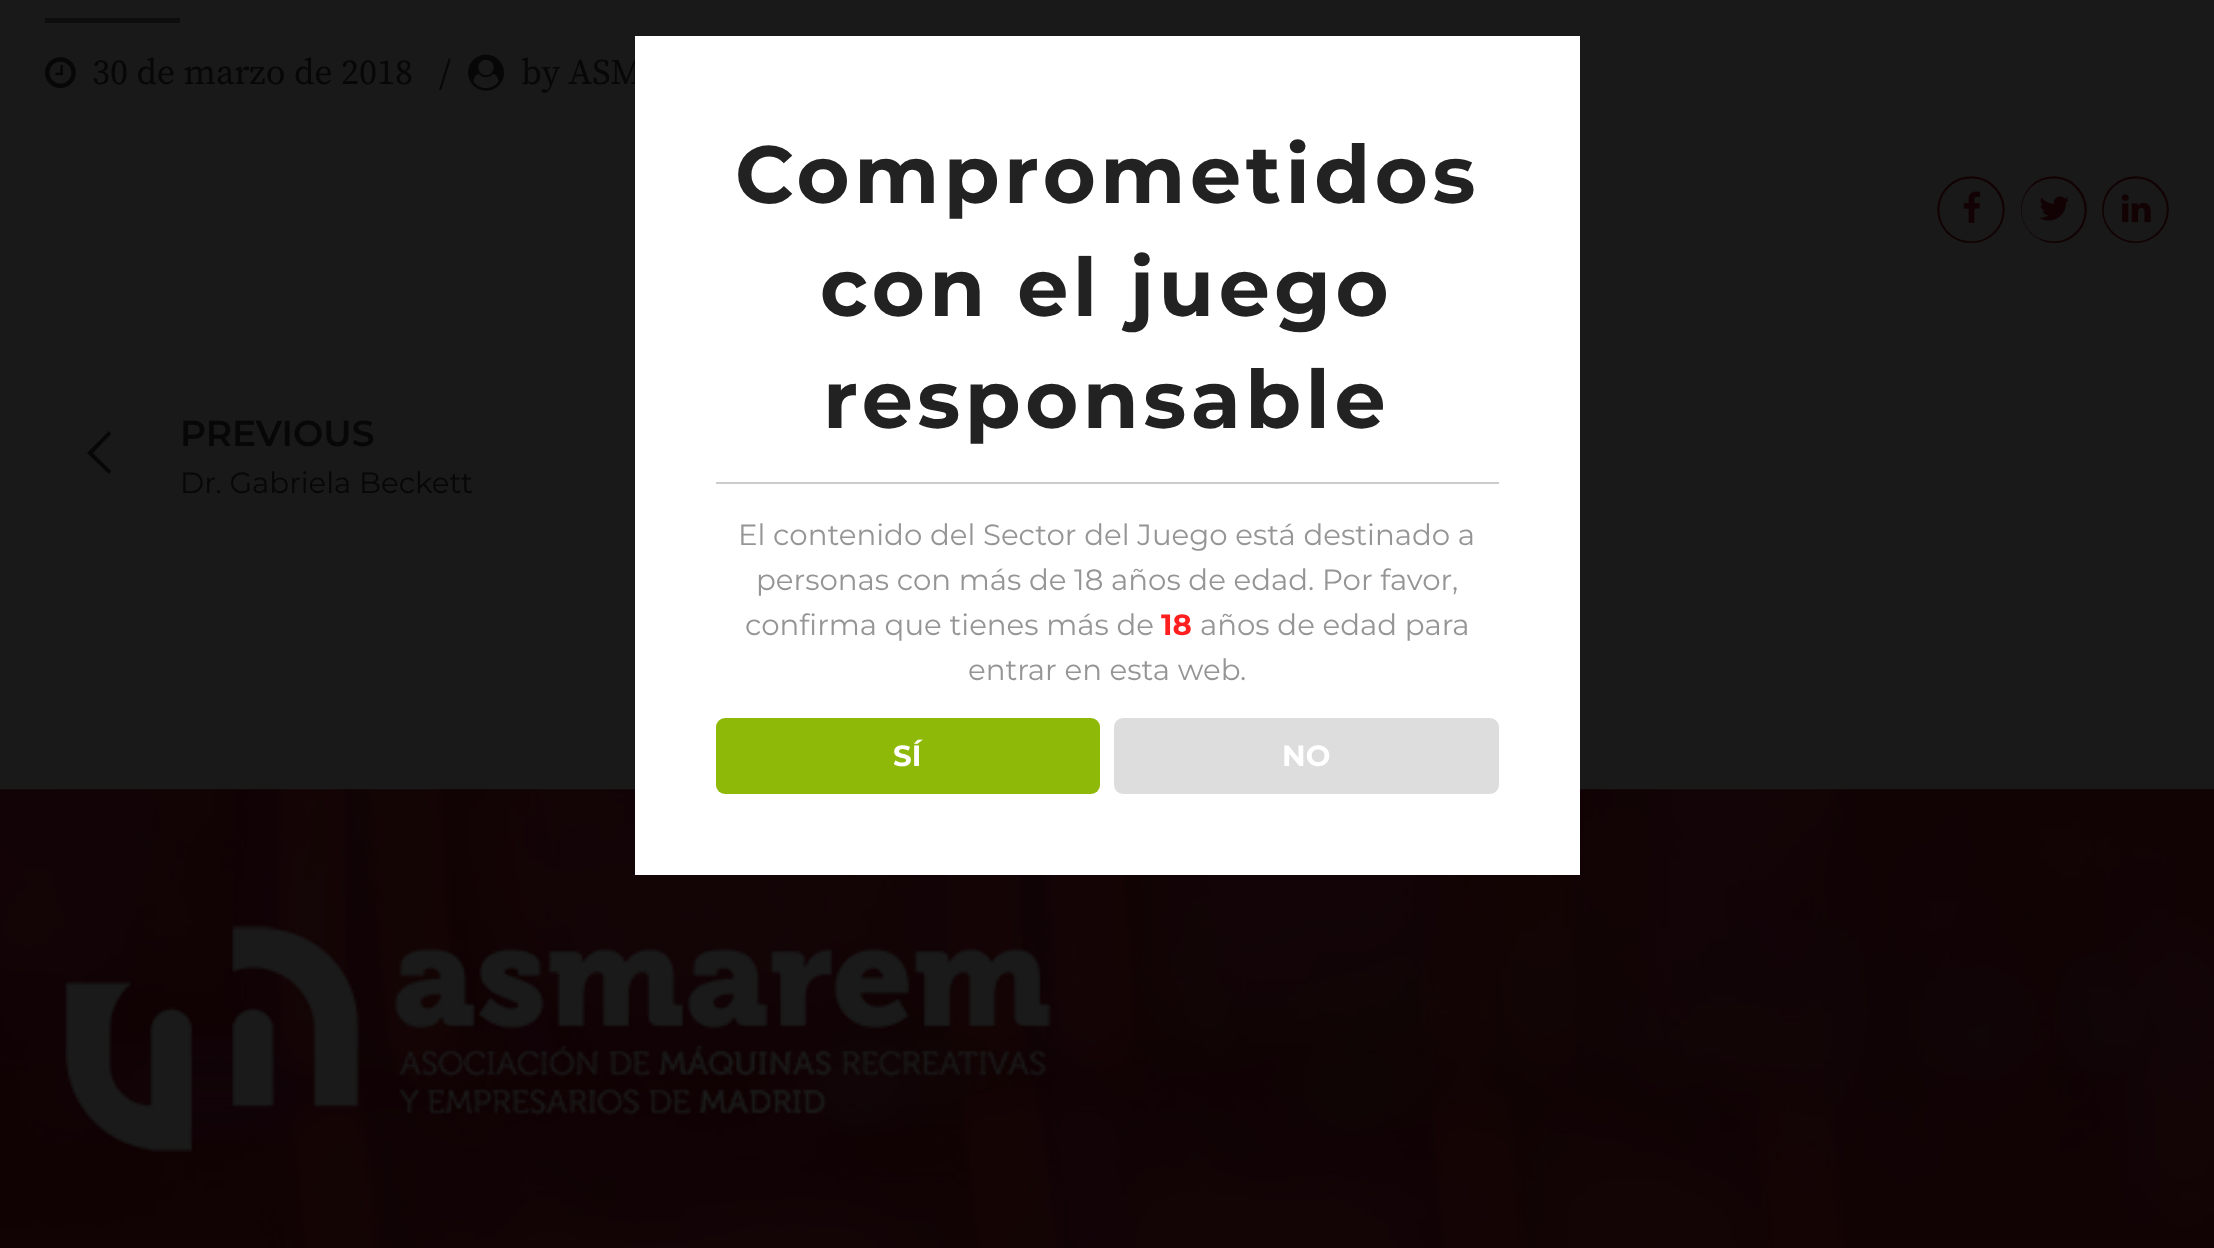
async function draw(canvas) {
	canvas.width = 2214;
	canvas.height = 1248;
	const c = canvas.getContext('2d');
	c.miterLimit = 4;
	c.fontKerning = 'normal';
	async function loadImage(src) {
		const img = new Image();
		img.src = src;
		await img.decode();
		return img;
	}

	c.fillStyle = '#191919';
	c.fillRect(0, 0, 2214, 1248);
	c.fillStyle = '#0d0d0d';
	c.fillRect(45, 18, 135, 5);
	c.drawImage(await loadImage('img1.png'), 45, 57, 31, 32);
	c.font = '36px Source Serif Pro';
	c.fillStyle = '#070707';
	c.fillText('30 de marzo de 2018', 92, 84);
	c.fillText('/', 439, 84);
	c.drawImage(await loadImage('img2.png'), 468, 54, 36, 37);
	c.fillText('by ASM', 521, 84);
	c.save();
	c.beginPath();
	c.roundRect(1937, 176, 68, 67, 33.5);
	c.clip();
	c.beginPath();
	c.moveTo(1996, 189);
	c.bezierCurveTo(2007.5, 202.5, 2006, 223.5, 1992, 235);
	c.bezierCurveTo(1978, 246.5, 1957.5, 244.5, 1946, 231);
	c.bezierCurveTo(1934.5, 217, 1936, 196.5, 1950, 185);
	c.bezierCurveTo(1964, 173.5, 1984.5, 175, 1996, 189);
	c.closePath();
	c.strokeStyle = '#130203';
	c.lineWidth = 2.2;
	c.stroke();
	c.restore();
	c.drawImage(await loadImage('img3.png'), 1963, 191, 18, 32);
	c.save();
	c.beginPath();
	c.roundRect(2021, 176, 67, 67, 33.5);
	c.clip();
	c.beginPath();
	c.moveTo(2078, 189);
	c.bezierCurveTo(2089.5, 202.5, 2088, 223.5, 2074, 235);
	c.bezierCurveTo(2060.5, 246.5, 2039.5, 244.5, 2028, 231);
	c.bezierCurveTo(2016.5, 217, 2018.5, 196.5, 2032, 185);
	c.bezierCurveTo(2046, 173.5, 2066.5, 175, 2078, 189);
	c.closePath();
	c.strokeStyle = '#130203';
	c.lineWidth = 2.2;
	c.stroke();
	c.restore();
	c.drawImage(await loadImage('img4.png'), 2039, 196, 30, 25);
	c.save();
	c.beginPath();
	c.roundRect(2102, 176, 67, 67, 33.5);
	c.clip();
	c.beginPath();
	c.moveTo(2160, 189);
	c.bezierCurveTo(2172, 202.5, 2170, 223.5, 2156, 235);
	c.bezierCurveTo(2142.5, 246.5, 2122, 244.5, 2110.5, 231);
	c.bezierCurveTo(2098.5, 217, 2100.5, 196.5, 2114.5, 185);
	c.bezierCurveTo(2128, 173.5, 2148.5, 175, 2160, 189);
	c.closePath();
	c.strokeStyle = '#130203';
	c.lineWidth = 2.2;
	c.stroke();
	c.restore();
	c.drawImage(await loadImage('img5.png'), 2121, 194, 30, 29);
	c.beginPath();
	c.moveTo(90, 450);
	c.lineTo(87, 453);
	c.lineTo(109, 474);
	c.lineTo(111, 471);
	c.lineTo(93, 453);
	c.lineTo(111, 434);
	c.lineTo(109, 431);
	c.closePath();
	c.fill();
	c.font = '600 36px Montserrat';
	c.fillText('PREVIOUS', 180, 446);
	c.font = '29.25px Montserrat';
	c.fillText('Dr. Gabriela Beckett', 180, 493);
	c.drawImage(await loadImage('img6.png'), 0, 789, 2214, 459);
	c.drawImage(await loadImage('img7.png'), 64, 924, 987, 229);
	c.fillStyle = '#fff';
	c.fillRect(635, 36, 945, 839);
	c.fillStyle = '#ccc';
	c.fillRect(716, 482, 783, 2);
	c.letterSpacing = '4.5px';
	c.font = 'bold 81px Montserrat';
	c.fillStyle = '#222';
	for (const [text, x, y] of [
		['Comprometidos', 735, 203],
		['con el juego', 820, 316],
		['responsable', 823, 428],
	]) {
		c.fillText(text, x, y);
	}
	c.letterSpacing = '0px';
	c.font = '29.25px Montserrat';
	c.fillStyle = '#959595';
	for (const [text, x, y] of [
		['El contenido del Sector del Juego está destinado a', 738, 545],
		['personas con más de 18 años de edad. Por favor,', 756, 590],
		['confirma que tienes más de', 745, 635],
	]) {
		c.fillText(text, x, y);
	}
	c.font = 'bold 29.25px Montserrat';
	c.fillStyle = '#ff1f1f';
	c.fillText('18', 1161, 635);
	c.font = '29.25px Montserrat';
	c.fillStyle = '#959595';
	c.fillText('años de edad para', 1200, 635);
	c.fillText('entrar en esta web.', 968, 680);
	c.fillStyle = '#8eb908';
	c.beginPath();
	c.roundRect(716, 718, 384, 76, 9);
	c.fill();
	c.font = 'bold 29.25px Montserrat';
	c.fillStyle = '#fff';
	c.fillText('SÍ', 893, 766);
	c.fillStyle = '#ddd';
	c.beginPath();
	c.roundRect(1114, 718, 385, 76, 9);
	c.fill();
	c.fillStyle = '#fff';
	c.fillText('NO', 1282, 766);
}

draw(document.querySelector('canvas'));
